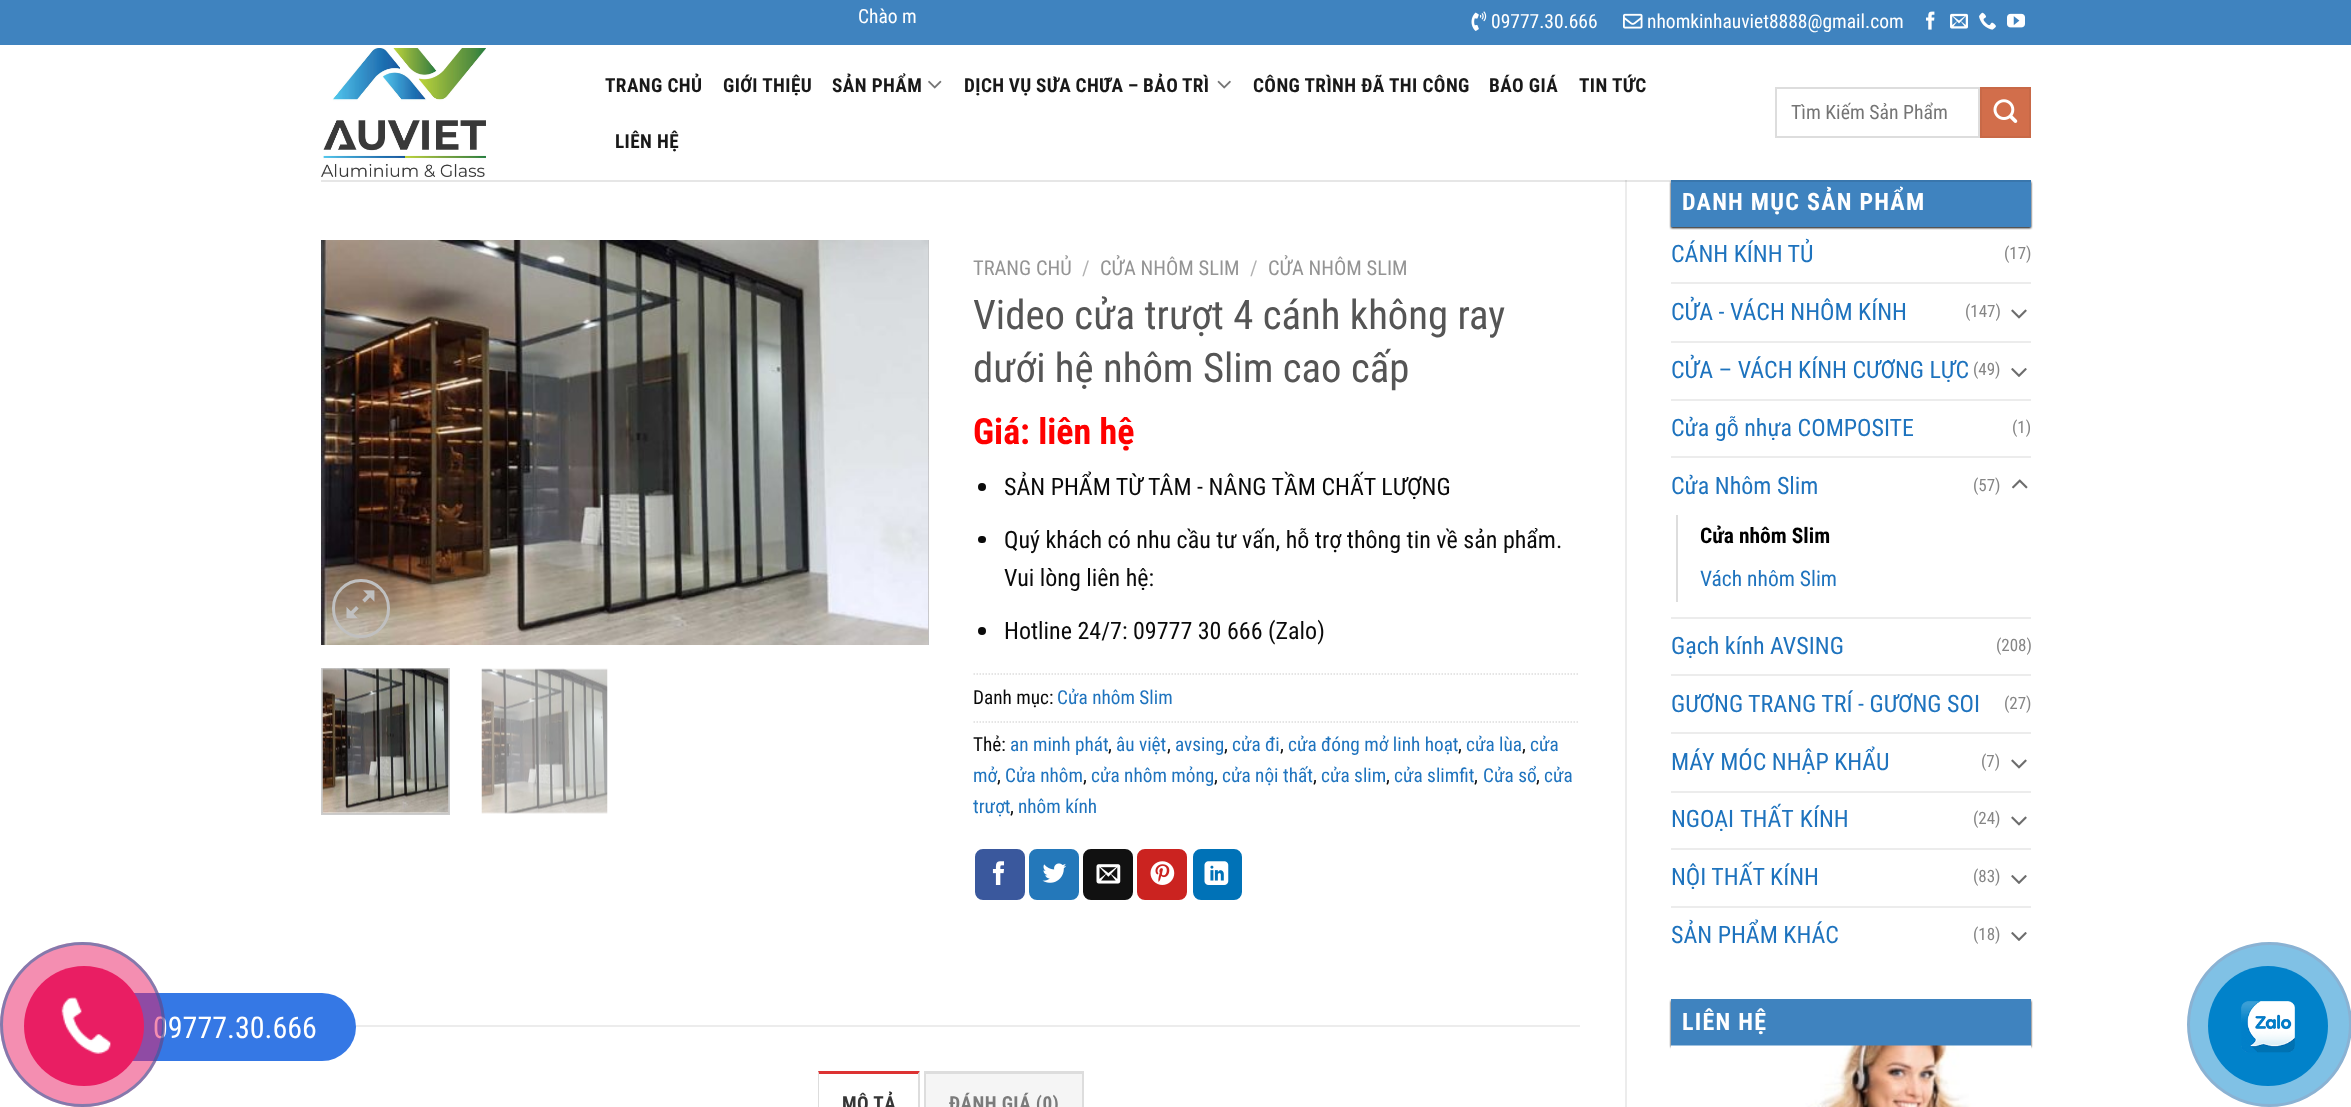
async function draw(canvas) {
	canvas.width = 2351;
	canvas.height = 1107;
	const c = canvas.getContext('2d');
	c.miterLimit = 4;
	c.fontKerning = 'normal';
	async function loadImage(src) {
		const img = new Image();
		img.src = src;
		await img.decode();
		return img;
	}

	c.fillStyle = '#fff';
	c.fillRect(0, 0, 2351, 1107);
	c.fillStyle = '#ececec';
	c.fillRect(355, 1025, 1225, 2);
	c.fillStyle = '#3578e5';
	c.beginPath();
	c.roundRect(78, 993, 278, 68, 34);
	c.fill();
	c.font = '30px Roboto Condensed';
	c.fillStyle = '#fff';
	c.fillText('09777.30.666', 153, 1038);
	c.fillStyle = '#e91e6380';
	c.beginPath();
	c.arc(82.5, 1024.5, 82.5, 0, 2 * Math.PI);
	c.fill();
	c.beginPath();
	c.arc(82.5, 1024.5, 81, 0, 2 * Math.PI);
	c.strokeStyle = '#1564a780';
	c.lineWidth = 3;
	c.stroke();
	c.fillStyle = '#e91e63';
	c.beginPath();
	c.arc(84, 1026, 60, 0, 2 * Math.PI);
	c.fill();
	c.drawImage(await loadImage('img1.png'), 61, 997, 50, 57);
	c.fillStyle = '#3f83bf';
	c.fillRect(0, 0, 2351, 45);
	c.font = '19.5px Roboto Condensed';
	c.fillStyle = '#fff';
	c.fillText('Chào m', 858, 23);
	c.drawImage(await loadImage('img2.png'), 1471, 11, 16, 20);
	c.fillText('09777.30.666', 1491, 28);
	c.drawImage(await loadImage('img3.png'), 1623, 13, 20, 16);
	c.fillText('nhomkinhauviet8888@gmail.com', 1647, 28);
	c.drawImage(await loadImage('img4.png'), 1926, 11, 9, 19);
	c.drawImage(await loadImage('img5.png'), 1950, 13, 18, 16);
	c.drawImage(await loadImage('img6.png'), 1979, 12, 17, 18);
	c.drawImage(await loadImage('img7.png'), 2007, 13, 18, 15);
	c.drawImage(await loadImage('img8.png'), 321, 48, 165, 129);
	c.letterSpacing = '0.4px';
	c.font = 'bold 19.25px Roboto Condensed';
	c.fillStyle = '#191919';
	for (const [text, x, y] of [
		['TRANG CHỦ', 605, 92],
		['GIỚI THIỆU', 723, 92],
		['SẢN PHẨM', 832, 92],
	]) {
		c.fillText(text, x, y);
	}
	c.drawImage(await loadImage('img9.png'), 928, 80, 14, 9);
	c.wordSpacing = '-0.5px';
	c.fillText('DỊCH VỤ SỬA CHỮA – BẢO TRÌ', 964, 92);
	c.drawImage(await loadImage('img10.png'), 1217, 80, 14, 9);
	c.wordSpacing = '0px';
	for (const [text, x, y] of [
		['CÔNG TRÌNH ĐÃ THI CÔNG', 1253, 92],
		['BÁO GIÁ', 1489, 92],
		['TIN TỨC', 1579, 92],
		['LIÊN HỆ', 615, 148],
	]) {
		c.fillText(text, x, y);
	}
	c.strokeStyle = '#ddd';
	c.lineWidth = 2;
	c.strokeRect(1776, 88, 203, 49);
	c.letterSpacing = '0px';
	c.font = '19.75px Roboto Condensed';
	c.fillStyle = '#757575';
	c.fillText('Tìm Kiếm Sản Phẩm', 1791, 119);
	c.fillStyle = '#d26e4b';
	c.beginPath();
	c.rect(1981, 88, 49, 49);
	c.fill();
	c.strokeStyle = '#c86947';
	c.stroke();
	c.drawImage(await loadImage('img11.png'), 1993, 99, 25, 24);
	c.fillStyle = '#ececec';
	c.fillRect(1625, 180, 2, 927);
	c.fillStyle = '#000';
	c.filter = 'blur(1px)';
	c.beginPath();
	c.rect(1671, 182, 360, 46);
	c.fill();
	c.filter = 'none';
	c.fillStyle = '#3f83bf';
	c.fillRect(1671, 180, 360, 47);
	c.fillStyle = '#0a0a0a1a';
	c.fillRect(321, 180, 1710, 2);
	c.drawImage(await loadImage('img12.png'), 321, 240, 608, 405);
	c.drawImage(await loadImage('img13.png'), 928, 240, 1, 405);
	c.beginPath();
	c.roundRect(333.5, 580.5, 55, 56, 27.5);
	c.strokeStyle = '#c0c0c0';
	c.lineWidth = 3;
	c.stroke();
	c.drawImage(await loadImage('img14.png'), 346, 590, 29, 29);
	c.strokeStyle = '#ccc';
	c.lineWidth = 2;
	c.strokeRect(322, 669, 127, 145);
	c.drawImage(await loadImage('img15.png'), 322, 668, 127, 146);
	c.drawImage(await loadImage('img16.png'), 481, 668, 127, 146);
	c.font = '20.5px Roboto Condensed';
	c.fillStyle = '#949494';
	c.fillText('TRANG CHỦ', 973, 275);
	c.fillStyle = '#b2b2b2';
	c.fillText('/', 1082, 275);
	c.fillStyle = '#949494';
	c.fillText('CỬA NHÔM SLIM', 1100, 275);
	c.fillStyle = '#b2b2b2';
	c.fillText('/', 1250, 275);
	c.fillStyle = '#949494';
	c.fillText('CỬA NHÔM SLIM', 1268, 275);
	c.font = '40.75px Roboto Condensed';
	c.fillStyle = '#555';
	c.fillText('Video cửa trượt 4 cánh không ray', 973, 329);
	c.fillText('dưới hệ nhôm Slim cao cấp', 973, 382);
	c.font = 'bold 36px Roboto Condensed';
	c.fillStyle = '#f00';
	c.fillText('Giá: liên hệ', 973, 444);
	c.fillStyle = '#0a0a0a';
	c.beginPath();
	c.arc(982, 487, 4, 0, 2 * Math.PI);
	c.fill();
	c.font = '24px Roboto Condensed';
	c.fillText('SẢN PHẨM TỪ TÂM - NÂNG TẦM CHẤT LƯỢNG', 1004, 495);
	c.beginPath();
	c.roundRect(978, 536, 8, 7, 3.5);
	c.fill();
	c.fillText('Quý khách có nhu cầu tư vấn, hỗ trợ thông tin về sản phẩm.', 1004, 548);
	c.fillText('Vui lòng liên hệ:', 1004, 586);
	c.beginPath();
	c.arc(982, 631, 4, 0, 2 * Math.PI);
	c.fill();
	c.fillText('Hotline 24/7: 09777 30 666 (Zalo)', 1004, 639);
	c.beginPath();
	c.moveTo(973.5, 674);
	c.lineTo(1579.5, 674);
	c.strokeStyle = '#ddd';
	c.lineWidth = 1.5;
	c.setLineDash([1.5, 1.5]);
	c.stroke();
	c.font = '19.25px Roboto Condensed';
	c.fillText('Danh mục:', 973, 704);
	c.fillStyle = '#1e73be';
	c.fillText('Cửa nhôm Slim', 1057, 704);
	c.beginPath();
	c.moveTo(973.5, 722);
	c.lineTo(1579.5, 722);
	c.stroke();
	c.fillStyle = '#0a0a0a';
	c.fillText('Thẻ:', 973, 751);
	c.fillStyle = '#1e73be';
	c.fillText('an minh phát', 1010, 751);
	c.fillStyle = '#0a0a0a';
	c.fillText(',', 1108, 751);
	c.fillStyle = '#1e73be';
	c.fillText('âu việt', 1116, 751);
	c.fillStyle = '#0a0a0a';
	c.fillText(',', 1167, 751);
	c.fillStyle = '#1e73be';
	c.fillText('avsing', 1175, 751);
	c.fillStyle = '#0a0a0a';
	c.fillText(',', 1224, 751);
	c.fillStyle = '#1e73be';
	c.fillText('cửa đi', 1232, 751);
	c.fillStyle = '#0a0a0a';
	c.fillText(',', 1280, 751);
	c.fillStyle = '#1e73be';
	c.fillText('cửa đóng mở linh hoạt', 1288, 751);
	c.fillStyle = '#0a0a0a';
	c.fillText(',', 1458, 751);
	c.fillStyle = '#1e73be';
	c.fillText('cửa lùa', 1466, 751);
	c.fillStyle = '#0a0a0a';
	c.fillText(',', 1522, 751);
	c.fillStyle = '#1e73be';
	c.fillText('cửa', 1530, 751);
	c.fillText('mở', 973, 782);
	c.fillStyle = '#0a0a0a';
	c.fillText(',', 997, 782);
	c.fillStyle = '#1e73be';
	c.fillText('Cửa nhôm', 1005, 782);
	c.fillStyle = '#0a0a0a';
	c.fillText(',', 1083, 782);
	c.fillStyle = '#1e73be';
	c.fillText('cửa nhôm mỏng', 1091, 782);
	c.fillStyle = '#0a0a0a';
	c.fillText(',', 1214, 782);
	c.fillStyle = '#1e73be';
	c.fillText('cửa nội thất', 1222, 782);
	c.fillStyle = '#0a0a0a';
	c.fillText(',', 1313, 782);
	c.fillStyle = '#1e73be';
	c.fillText('cửa slim', 1321, 782);
	c.fillStyle = '#0a0a0a';
	c.fillText(',', 1386, 782);
	c.fillStyle = '#1e73be';
	c.fillText('cửa slimfit', 1394, 782);
	c.fillStyle = '#0a0a0a';
	c.fillText(',', 1474, 782);
	c.fillStyle = '#1e73be';
	c.fillText('Cửa sổ', 1483, 782);
	c.fillStyle = '#0a0a0a';
	c.fillText(',', 1536, 782);
	c.fillStyle = '#1e73be';
	c.fillText('cửa', 1544, 782);
	c.fillText('trượt', 973, 813);
	c.fillStyle = '#0a0a0a';
	c.fillText(',', 1010, 813);
	c.fillStyle = '#1e73be';
	c.fillText('nhôm kính', 1018, 813);
	c.fillStyle = '#3a589d';
	c.beginPath();
	c.roundRect(976, 850, 48, 49, 7);
	c.fill();
	c.strokeStyle = '#3a589d';
	c.lineWidth = 2;
	c.setLineDash([]);
	c.stroke();
	c.drawImage(await loadImage('img17.png'), 992, 861, 12, 24);
	c.fillStyle = '#2478ba';
	c.beginPath();
	c.roundRect(1030, 850, 48, 49, 7);
	c.fill();
	c.strokeStyle = '#2478ba';
	c.stroke();
	c.drawImage(await loadImage('img18.png'), 1042, 863, 25, 20);
	c.fillStyle = '#111';
	c.beginPath();
	c.roundRect(1084, 850, 48, 49, 7);
	c.fill();
	c.strokeStyle = '#111';
	c.stroke();
	c.drawImage(await loadImage('img19.png'), 1096, 864, 25, 20);
	c.fillStyle = '#cb2320';
	c.beginPath();
	c.roundRect(1138, 850, 48, 49, 7);
	c.fill();
	c.strokeStyle = '#cb2320';
	c.stroke();
	c.drawImage(await loadImage('img20.png'), 1150, 861, 25, 24);
	c.fillStyle = '#0072b7';
	c.beginPath();
	c.roundRect(1194, 850, 47, 49, 7);
	c.fill();
	c.strokeStyle = '#0072b7';
	c.stroke();
	c.drawImage(await loadImage('img21.png'), 1204, 861, 25, 24);
	c.fillStyle = '#d33';
	c.beginPath();
	c.moveTo(818, 1071);
	c.lineTo(920, 1071);
	c.lineTo(918, 1074);
	c.lineTo(819, 1074);
	c.closePath();
	c.fill();
	c.fillStyle = '#ddd';
	c.beginPath();
	c.moveTo(920, 1071);
	c.lineTo(920, 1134);
	c.lineTo(918, 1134);
	c.lineTo(918, 1074);
	c.closePath();
	c.fill();
	c.beginPath();
	c.moveTo(818, 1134);
	c.lineTo(818, 1071);
	c.lineTo(819, 1074);
	c.lineTo(819, 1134);
	c.closePath();
	c.fill();
	c.letterSpacing = '0.4px';
	c.font = 'bold 19.25px Roboto Condensed';
	c.fillStyle = '#363636';
	c.fillText('MÔ TẢ', 842, 1110);
	for (const [x, y, w, h, color] of [
		[926, 1074, 156, 33, '#f5f5f5'],
		[924, 1071, 159, 3, '#ddd'],
		[1082, 1071, 2, 36, '#ddd'],
		[924, 1071, 2, 36, '#ddd'],
	]) {
		c.fillStyle = color;
		c.fillRect(x, y, w, h);
	}
	c.fillStyle = '#7b7b7b';
	c.fillText('ĐÁNH GIÁ (0)', 949, 1110);
	c.letterSpacing = '1.25px';
	c.font = 'bold 24px Roboto Condensed';
	c.fillStyle = '#fff';
	c.fillText('DANH MỤC SẢN PHẨM', 1682, 210);
	c.letterSpacing = '0px';
	c.font = '24px Roboto Condensed';
	c.fillStyle = '#1e73be';
	c.fillText('CÁNH KÍNH TỦ', 1671, 262);
	c.font = '17px Roboto Condensed';
	c.fillStyle = '#858585';
	c.fillText('(17)', 2004, 259);
	c.fillStyle = '#ececec';
	c.fillRect(1671, 282, 360, 2);
	c.font = '24px Roboto Condensed';
	c.fillStyle = '#1e73be';
	c.fillText('CỬA - VÁCH NHÔM KÍNH', 1671, 320);
	c.font = '17px Roboto Condensed';
	c.fillStyle = '#858585';
	c.fillText('(147)', 1965, 317);
	c.drawImage(await loadImage('img22.png'), 2011, 309, 16, 10);
	c.fillStyle = '#ececec';
	c.fillRect(1671, 341, 360, 2);
	c.font = '24px Roboto Condensed';
	c.fillStyle = '#1e73be';
	c.fillText('CỬA – VÁCH KÍNH CƯỜNG LỰC', 1671, 378);
	c.font = '17px Roboto Condensed';
	c.fillStyle = '#858585';
	c.fillText('(49)', 1973, 375);
	c.drawImage(await loadImage('img23.png'), 2011, 368, 16, 9);
	c.fillStyle = '#ececec';
	c.fillRect(1671, 399, 360, 2);
	c.font = '24px Roboto Condensed';
	c.fillStyle = '#1e73be';
	c.fillText('Cửa gỗ nhựa COMPOSITE', 1671, 436);
	c.font = '17px Roboto Condensed';
	c.fillStyle = '#858585';
	c.fillText('(1)', 2012, 433);
	c.fillStyle = '#ececec';
	c.fillRect(1671, 456, 360, 2);
	c.font = '24px Roboto Condensed';
	c.fillStyle = '#1e73be';
	c.fillText('Cửa Nhôm Slim', 1671, 494);
	c.font = '17px Roboto Condensed';
	c.fillStyle = '#858585';
	c.fillText('(57)', 1973, 491);
	c.drawImage(await loadImage('img24.png'), 2012, 479, 16, 10);
	c.fillStyle = '#ddd';
	c.fillRect(1676, 515, 2, 87);
	c.font = 'bold 21.5px Roboto Condensed';
	c.fillStyle = '#000';
	c.fillText('Cửa nhôm Slim', 1700, 543);
	c.font = '21.5px Roboto Condensed';
	c.fillStyle = '#1e73be';
	c.fillText('Vách nhôm Slim', 1700, 586);
	c.fillStyle = '#ececec';
	c.fillRect(1671, 617, 360, 2);
	c.font = '24px Roboto Condensed';
	c.fillStyle = '#1e73be';
	c.fillText('Gạch kính AVSING', 1671, 654);
	c.font = '17px Roboto Condensed';
	c.fillStyle = '#858585';
	c.fillText('(208)', 1996, 651);
	c.fillStyle = '#ececec';
	c.fillRect(1671, 674, 360, 2);
	c.font = '24px Roboto Condensed';
	c.fillStyle = '#1e73be';
	c.fillText('GƯƠNG TRANG TRÍ - GƯƠNG SOI', 1671, 712);
	c.font = '17px Roboto Condensed';
	c.fillStyle = '#858585';
	c.fillText('(27)', 2004, 709);
	c.fillStyle = '#ececec';
	c.fillRect(1671, 732, 360, 2);
	c.font = '24px Roboto Condensed';
	c.fillStyle = '#1e73be';
	c.fillText('MÁY MÓC NHẬP KHẨU', 1671, 770);
	c.font = '17px Roboto Condensed';
	c.fillStyle = '#858585';
	c.fillText('(7)', 1981, 767);
	c.drawImage(await loadImage('img22.png'), 2011, 759, 16, 10);
	c.fillStyle = '#ececec';
	c.fillRect(1671, 791, 360, 2);
	c.wordSpacing = '1px';
	c.font = '24px Roboto Condensed';
	c.fillStyle = '#1e73be';
	c.fillText('NGOẠI THẤT KÍNH', 1671, 827);
	c.wordSpacing = '0px';
	c.font = '17px Roboto Condensed';
	c.fillStyle = '#858585';
	c.fillText('(24)', 1973, 824);
	c.drawImage(await loadImage('img22.png'), 2011, 816, 16, 10);
	c.fillStyle = '#ececec';
	c.fillRect(1671, 848, 360, 2);
	c.font = '24px Roboto Condensed';
	c.fillStyle = '#1e73be';
	c.fillText('NỘI THẤT KÍNH', 1671, 885);
	c.font = '17px Roboto Condensed';
	c.fillStyle = '#858585';
	c.fillText('(83)', 1973, 882);
	c.drawImage(await loadImage('img23.png'), 2011, 875, 16, 9);
	c.fillStyle = '#ececec';
	c.fillRect(1671, 906, 360, 2);
	c.font = '24px Roboto Condensed';
	c.fillStyle = '#1e73be';
	c.fillText('SẢN PHẨM KHÁC', 1671, 943);
	c.font = '17px Roboto Condensed';
	c.fillStyle = '#858585';
	c.fillText('(18)', 1973, 940);
	c.drawImage(await loadImage('img23.png'), 2011, 932, 16, 9);
	c.fillStyle = '#000';
	c.filter = 'blur(1px)';
	c.beginPath();
	c.rect(1671, 1001, 360, 46);
	c.fill();
	c.filter = 'none';
	c.fillStyle = '#3f83bf';
	c.fillRect(1671, 999, 360, 47);
	c.letterSpacing = '1.25px';
	c.font = 'bold 24px Roboto Condensed';
	c.fillStyle = '#fff';
	c.fillText('LIÊN HỆ', 1682, 1030);
	c.drawImage(await loadImage('img25.png'), 1671, 1045, 360, 62);
	c.fillStyle = '#80c1e5';
	c.beginPath();
	c.arc(2269.5, 1024.5, 81, 0, 2 * Math.PI);
	c.fill();
	c.strokeStyle = '#8ab2d3';
	c.lineWidth = 3;
	c.stroke();
	c.fillStyle = '#0182ca';
	c.beginPath();
	c.arc(2268, 1026, 60, 0, 2 * Math.PI);
	c.fill();
	c.drawImage(await loadImage('img26.png'), 2241, 1001, 54, 52);
}

draw(document.querySelector('canvas'));
